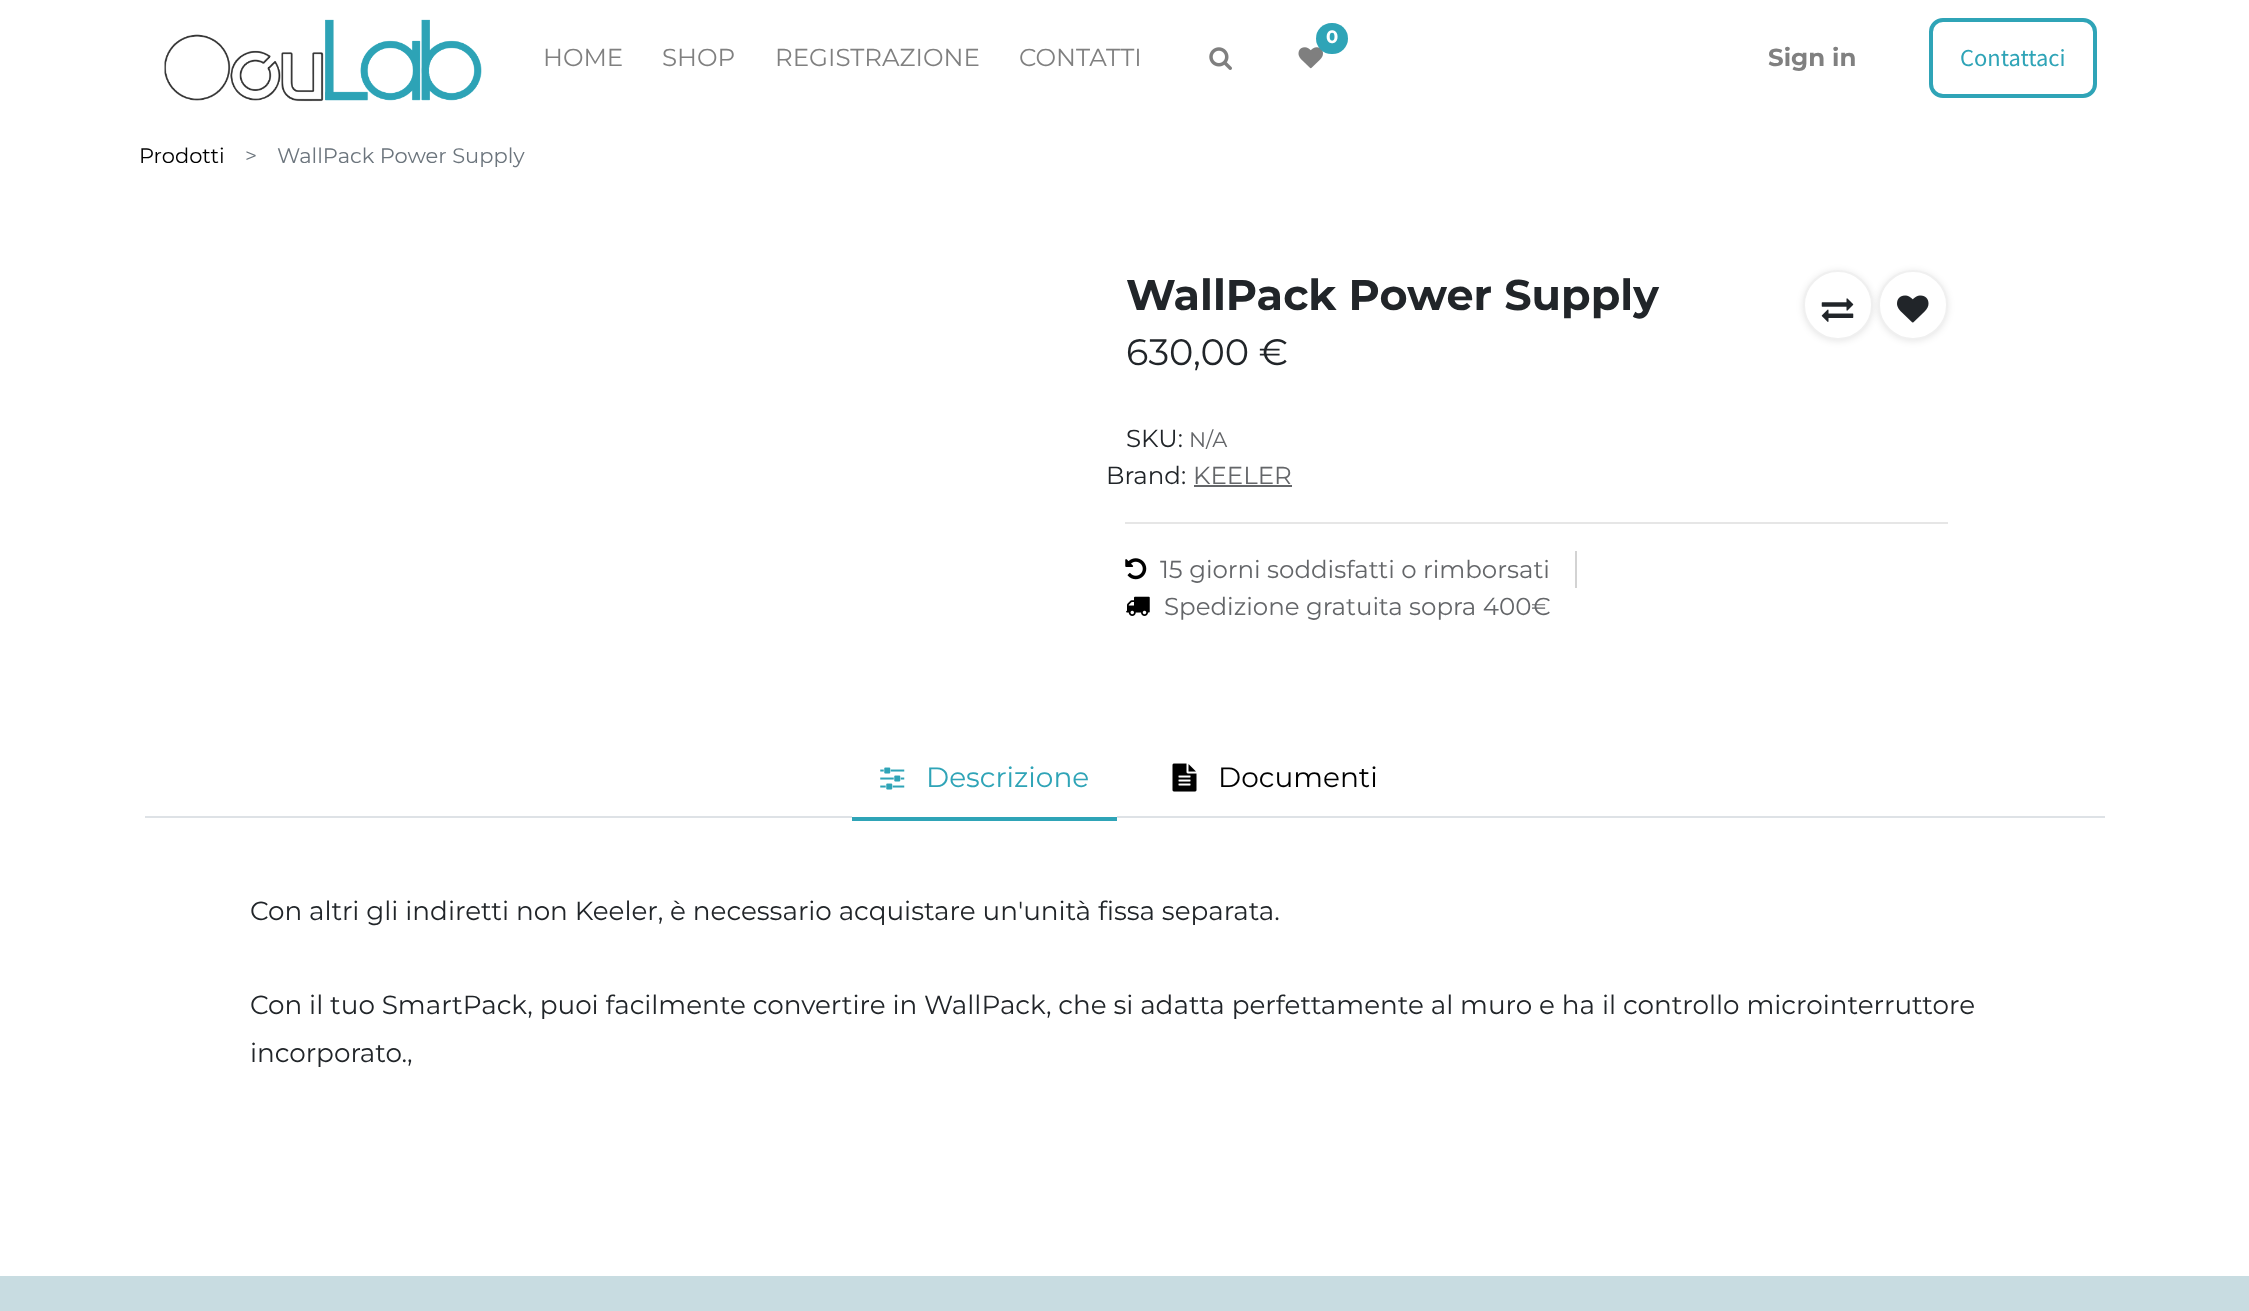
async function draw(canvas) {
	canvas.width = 2249;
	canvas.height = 1311;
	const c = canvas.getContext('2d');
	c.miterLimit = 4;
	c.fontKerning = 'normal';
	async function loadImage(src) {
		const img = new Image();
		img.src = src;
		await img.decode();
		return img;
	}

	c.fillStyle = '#fff';
	c.fillRect(0, 0, 2249, 1311);
	c.drawImage(await loadImage('img1.png'), 164, 19, 318, 83);
	c.drawImage(await loadImage('img2.png'), 1298, 47, 25, 22);
	c.fillStyle = '#2fa4b7';
	c.beginPath();
	c.roundRect(1316, 23, 32, 31, 15.5);
	c.fill();
	c.font = 'bold 18px Montserrat';
	c.fillStyle = '#fff';
	c.fillText('0', 1326, 43);
	c.font = '24.5px Montserrat';
	c.fillStyle = '#808080';
	for (const [text, x, y] of [
		['HOME', 543, 66],
		['SHOP', 662, 66],
		['REGISTRAZIONE', 775, 66],
		['CONTATTI', 1019, 66],
	]) {
		c.fillText(text, x, y);
	}
	c.drawImage(await loadImage('img3.png'), 1209, 47, 23, 23);
	c.font = 'bold 24.5px Montserrat';
	c.fillText('Sign in', 1768, 66);
	c.beginPath();
	c.roundRect(1931, 20, 164, 76, 12);
	c.strokeStyle = '#2fa4b7';
	c.lineWidth = 4;
	c.stroke();
	c.font = '24.5px Source Sans Pro';
	c.fillStyle = '#2fa4b7';
	c.fillText('Contattaci', 1960, 66);
	c.font = '21px Montserrat';
	c.fillStyle = '#000';
	c.fillText('Prodotti', 139, 163);
	c.fillStyle = '#6c757d';
	c.fillText('>', 245, 163);
	c.fillText('WallPack Power Supply', 277, 163);
	c.font = 'bold 42.9px Montserrat';
	c.fillStyle = '#212529';
	c.fillText('WallPack Power Supply', 1126, 310);
	c.fillStyle = '#0000001a';
	c.filter = 'blur(3.5px)';
	c.beginPath();
	c.roundRect(1803, 271, 70, 70, 35);
	c.fill();
	c.filter = 'none';
	c.fillStyle = '#fff';
	c.beginPath();
	c.arc(1838, 305, 34, 0, 2 * Math.PI);
	c.fill();
	c.strokeStyle = '#f0f0f0';
	c.lineWidth = 2;
	c.stroke();
	c.drawImage(await loadImage('img4.png'), 1821, 298, 33, 24);
	c.fillStyle = '#0000001a';
	c.filter = 'blur(3.5px)';
	c.beginPath();
	c.roundRect(1878, 271, 70, 70, 35);
	c.fill();
	c.filter = 'none';
	c.fillStyle = '#fff';
	c.beginPath();
	c.arc(1913, 305, 34, 0, 2 * Math.PI);
	c.fill();
	c.stroke();
	c.drawImage(await loadImage('img5.png'), 1897, 295, 32, 28);
	c.font = '36.75px Montserrat';
	c.fillStyle = '#212529';
	c.fillText('630,00 €', 1126, 365);
	c.font = '24.5px Montserrat';
	c.fillText('SKU:', 1126, 447);
	c.font = '21px Montserrat';
	c.fillStyle = '#646669';
	c.fillText('N/A', 1189, 447);
	c.font = '24.5px Montserrat';
	c.fillStyle = '#212529';
	c.fillText('Brand:', 1106, 484);
	c.fillStyle = '#646669';
	c.fillText('KEELER', 1193, 484);
	for (const [x, y, w, h, color] of [
		[1194, 485, 98, 2, '#646669'],
		[1125, 522, 823, 2, '#e6e6e6'],
		[1575, 551, 2, 37, '#d3d3d3'],
	]) {
		c.fillStyle = color;
		c.fillRect(x, y, w, h);
	}
	c.drawImage(await loadImage('img6.png'), 1125, 558, 22, 22);
	c.fillStyle = '#646669';
	c.fillText('15 giorni soddisfatti o rimborsati', 1160, 578);
	c.drawImage(await loadImage('img7.png'), 1126, 596, 24, 20);
	c.fillText('Spedizione gratuita sopra 400€', 1164, 615);
	for (const [x, y, w, h, color] of [
		[145, 816, 1960, 2, '#dee2e6'],
		[852, 816, 265, 1, '#fff'],
		[852, 817, 265, 4, '#2fa4b7'],
	]) {
		c.fillStyle = color;
		c.fillRect(x, y, w, h);
	}
	c.drawImage(await loadImage('img8.png'), 880, 767, 25, 23);
	c.font = '28px Montserrat';
	c.fillText('Descrizione', 926, 787);
	c.drawImage(await loadImage('img9.png'), 1172, 763, 25, 29);
	c.fillStyle = '#000';
	c.fillText('Documenti', 1218, 787);
	c.font = '26.25px Montserrat';
	c.fillStyle = '#212529';
	for (const [text, x, y] of [
		['Con altri gli indiretti non Keeler, è necessario acquistare un\'unità fissa separata.', 250, 920],
		['Con il tuo SmartPack, puoi facilmente convertire in WallPack, che si adatta perfettamente al muro e ha il controllo microinterruttore', 250, 1014],
		['incorporato.,', 250, 1062],
	]) {
		c.fillText(text, x, y);
	}
	c.fillStyle = '#c8dce1';
	c.fillRect(0, 1276, 2249, 35);
}

draw(document.querySelector('canvas'));
